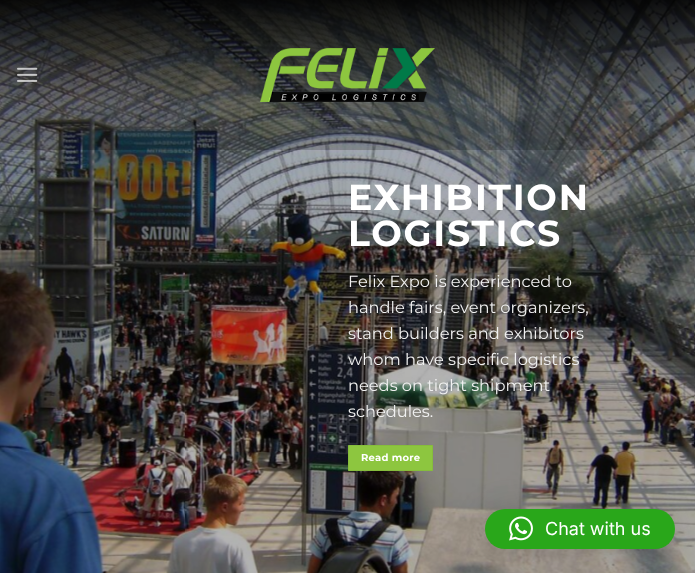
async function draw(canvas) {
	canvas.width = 695;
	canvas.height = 573;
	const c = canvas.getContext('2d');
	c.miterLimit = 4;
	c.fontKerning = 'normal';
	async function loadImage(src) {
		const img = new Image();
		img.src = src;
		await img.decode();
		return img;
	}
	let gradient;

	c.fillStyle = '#fff';
	c.fillRect(0, 0, 695, 573);
	c.drawImage(await loadImage('img3.png'), 0, 0, 695, 573);
	c.fillStyle = '#00000030';
	c.fillRect(0, 0, 695, 150);
	gradient = c.createLinearGradient(348, 0, 348, 150);
	gradient.addColorStop(0, '#000000e6');
	gradient.addColorStop(0.7, '#00000000');
	c.fillStyle = gradient;
	c.fillRect(0, 0, 695, 102);
	c.drawImage(await loadImage('img1.png'), 17, 67, 21, 15);
	c.drawImage(await loadImage('img2.png'), 260, 48, 175, 54);
	c.letterSpacing = '1.75px';
	c.font = 'bold 36.25px Montserrat';
	c.fillStyle = '#fff';
	c.fillText('EXHIBITION', 348, 210);
	c.fillText('LOGISTICS', 348, 246);
	c.letterSpacing = '0px';
	c.font = '16.25px Montserrat';
	c.fillStyle = '#f1f1f1';
	for (const [text, x, y] of [
		['Felix Expo is experienced to', 348, 287],
		['handle fairs, event organizers,', 348, 313],
		['stand builders and exhibitors', 348, 339],
		['whom have specific logistics', 348, 365],
		['needs on tight shipment', 348, 391],
		['schedules.', 348, 417],
	]) {
		c.fillText(text, x, y);
	}
	c.fillStyle = '#8dc63f';
	c.beginPath();
	c.rect(348.5, 445.5, 84, 25);
	c.fill();
	c.strokeStyle = '#86bc3c';
	c.stroke();
	c.letterSpacing = '0.25px';
	c.font = 'bold 10px Montserrat';
	c.fillStyle = '#fff';
	c.fillText('Read more', 361, 461);
	c.fillStyle = '#00000029';
	c.filter = 'blur(16px)';
	c.beginPath();
	c.roundRect(485, 511, 190, 40, 20);
	c.fill();
	c.filter = 'none';
	c.fillStyle = '#29a71a';
	c.beginPath();
	c.roundRect(485, 509, 190, 40, 20);
	c.fill();
	c.drawImage(await loadImage('img4.png'), 509, 516, 24, 25);
	c.letterSpacing = '0px';
	c.font = '18px Inter';
	c.fillStyle = '#fff';
	c.fillText('Chat with us', 545, 535);
}

draw(document.querySelector('canvas'));
